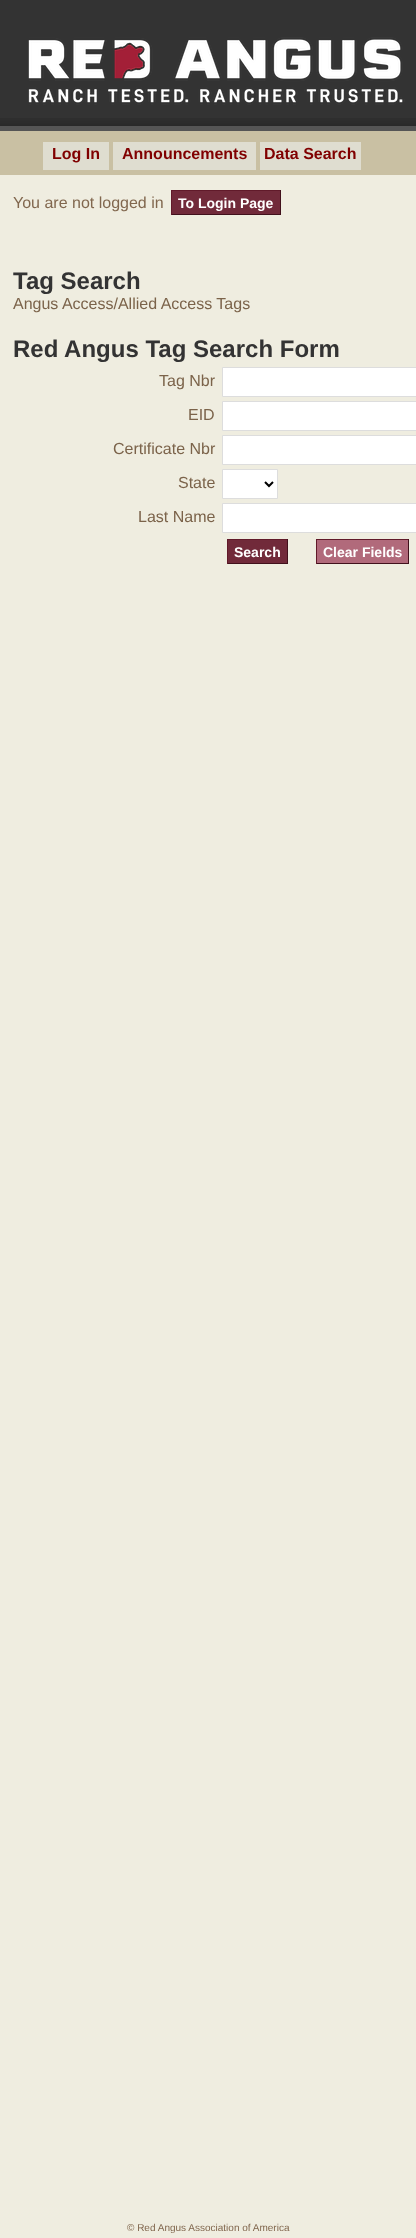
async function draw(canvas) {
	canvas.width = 416;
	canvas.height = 2238;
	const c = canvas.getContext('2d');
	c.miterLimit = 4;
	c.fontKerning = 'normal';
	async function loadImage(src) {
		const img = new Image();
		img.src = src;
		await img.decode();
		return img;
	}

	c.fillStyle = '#efede0';
	c.fillRect(0, 0, 416, 2238);
	c.fillStyle = '#333';
	c.fillRect(0, 0, 416, 118);
	c.drawImage(await loadImage('img1.png'), 0, 118, 416, 8);
	c.fillStyle = '#555';
	c.fillRect(0, 126, 416, 5);
	c.drawImage(await loadImage('img2.png'), 28, 37, 377, 68);
	c.fillStyle = '#c9c0a3';
	c.fillRect(0, 131, 416, 44);
	c.fillStyle = '#dfddd0';
	c.fillRect(43, 142, 66, 28);
	c.font = 'bold 16px Liberation Sans';
	c.fillStyle = '#800000';
	c.fillText('Log In', 52, 159);
	c.fillStyle = '#dfddd0';
	c.fillRect(113, 142, 143, 28);
	c.fillStyle = '#800000';
	c.fillText('Announcements', 122, 159);
	c.fillStyle = '#dfddd0';
	c.fillRect(260, 142, 101, 28);
	c.fillStyle = '#800000';
	c.fillText('Data Search', 264, 159);
	c.font = '16px Liberation Sans';
	c.fillStyle = '#81674e';
	c.fillText('You are not logged in', 13, 208);
	for (const [x, y, w, h, color] of [
		[172, 191, 108, 23, '#712a3a'],
		[171, 190, 110, 1, '#611a2a'],
		[280, 190, 1, 25, '#41111c'],
		[171, 214, 110, 1, '#41111c'],
		[171, 190, 1, 25, '#611a2a'],
	]) {
		c.fillStyle = color;
		c.fillRect(x, y, w, h);
	}
	c.font = 'bold 14px Liberation Sans';
	c.fillStyle = '#fff';
	c.fillText('To Login Page', 178, 208);
	c.font = 'bold 24px Liberation Sans';
	c.fillStyle = '#333';
	c.fillText('Tag Search', 13, 289);
	c.font = '16px Liberation Sans';
	c.fillStyle = '#7b634a';
	c.fillText('Angus Access/Allied Access Tags', 13, 309);
	c.font = 'bold 24px Liberation Sans';
	c.fillStyle = '#333';
	c.fillText('Red Angus Tag Search Form', 13, 357);
	c.font = '16px Liberation Sans';
	c.fillStyle = '#7b634a';
	c.fillText('Tag Nbr', 159, 386);
	c.fillStyle = '#fff';
	c.beginPath();
	c.rect(222.5, 367.5, 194, 29);
	c.fill();
	c.strokeStyle = '#ddd';
	c.stroke();
	c.fillStyle = '#7b634a';
	c.fillText('EID', 188, 420);
	c.fillStyle = '#fff';
	c.beginPath();
	c.rect(222.5, 401.5, 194, 29);
	c.fill();
	c.stroke();
	c.fillStyle = '#7b634a';
	c.fillText('Certificate Nbr', 113, 454);
	c.fillStyle = '#fff';
	c.beginPath();
	c.rect(222.5, 435.5, 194, 29);
	c.fill();
	c.stroke();
	c.fillStyle = '#7b634a';
	c.fillText('State', 178, 488);
	c.fillStyle = '#fff';
	c.beginPath();
	c.rect(222.5, 469.5, 55, 29);
	c.fill();
	c.stroke();
	c.beginPath();
	c.moveTo(265, 482);
	c.lineTo(269, 486);
	c.lineTo(273, 482);
	c.strokeStyle = '#000';
	c.lineWidth = 2;
	c.stroke();
	c.fillStyle = '#7b634a';
	c.fillText('Last Name', 138, 522);
	c.fillStyle = '#fff';
	c.beginPath();
	c.rect(222.5, 503.5, 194, 29);
	c.fill();
	c.strokeStyle = '#ddd';
	c.lineWidth = 1;
	c.stroke();
	for (const [x, y, w, h, color] of [
		[228, 540, 59, 23, '#712a3a'],
		[227, 539, 61, 1, '#611a2a'],
		[287, 539, 1, 25, '#41111c'],
		[227, 563, 61, 1, '#41111c'],
		[227, 539, 1, 25, '#611a2a'],
	]) {
		c.fillStyle = color;
		c.fillRect(x, y, w, h);
	}
	c.font = 'bold 14px Liberation Sans';
	c.fillStyle = '#fff';
	c.fillText('Search', 234, 557);
	for (const [x, y, w, h, color] of [
		[317, 540, 91, 23, '#b16a7b'],
		[316, 539, 93, 1, '#611a2a'],
		[408, 539, 1, 25, '#41111c'],
		[316, 563, 93, 1, '#41111c'],
		[316, 539, 1, 25, '#611a2a'],
	]) {
		c.fillStyle = color;
		c.fillRect(x, y, w, h);
	}
	c.fillStyle = '#fff';
	c.fillText('Clear Fields', 323, 557);
	c.font = '10px Liberation Sans';
	c.fillStyle = '#81674e';
	c.fillText('© Red Angus Association of America', 127, 2231);
}

draw(document.querySelector('canvas'));
